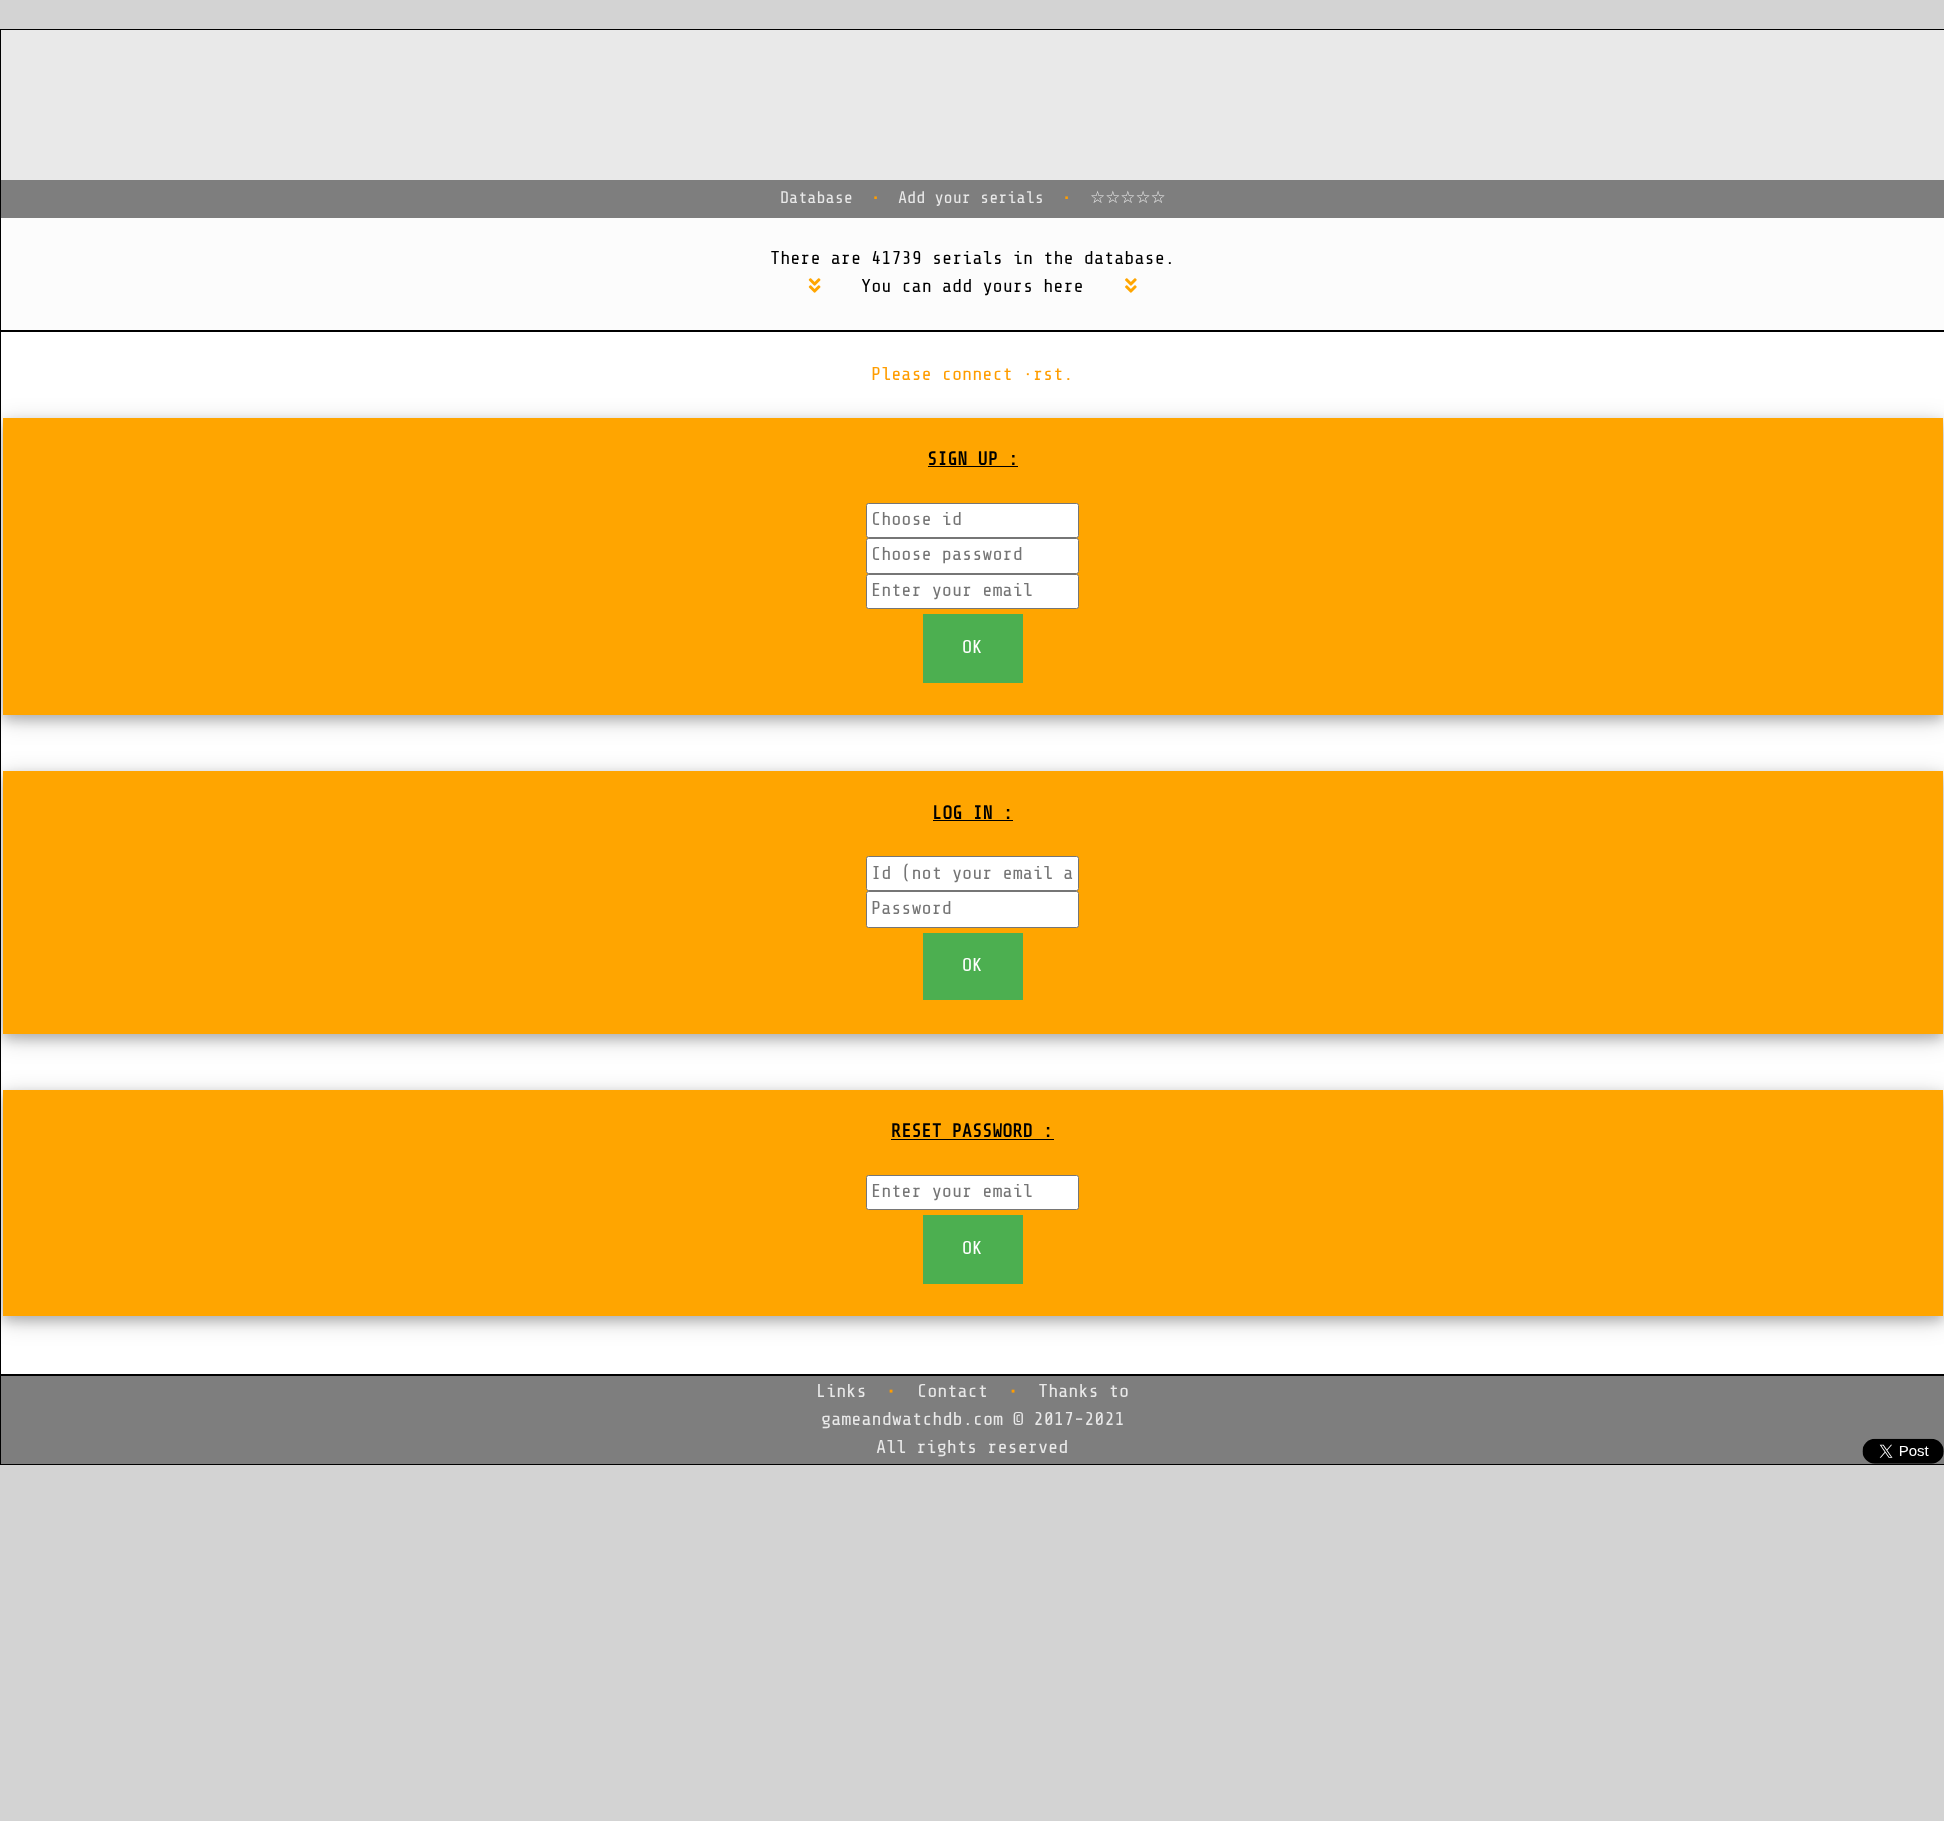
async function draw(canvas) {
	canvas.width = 1944;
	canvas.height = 1821;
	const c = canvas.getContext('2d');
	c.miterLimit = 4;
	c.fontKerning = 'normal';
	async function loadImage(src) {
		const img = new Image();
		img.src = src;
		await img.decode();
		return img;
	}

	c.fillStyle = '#d3d3d3';
	c.fillRect(0, 0, 1944, 1821);
	for (const [x, y, w, h, color] of [
		[0, 29, 1944, 1, '#000'],
		[0, 330, 1944, 2, '#000'],
		[0, 29, 1, 302, '#000'],
		[1, 30, 1943, 150, '#e9e9e9'],
		[1, 180, 1943, 38, '#7e7e7e'],
	]) {
		c.fillStyle = color;
		c.fillRect(x, y, w, h);
	}
	c.font = '16.9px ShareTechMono';
	c.fillStyle = '#e9e9e9';
	c.fillText('Database', 780, 203);
	c.fillStyle = '#ff9d00';
	c.fillText('•', 871, 203);
	c.fillStyle = '#e9e9e9';
	c.fillText('Add your serials', 898, 203);
	c.fillStyle = '#ff9d00';
	c.fillText('•', 1062, 203);
	c.font = '16.9px DejaVu Sans';
	c.fillStyle = '#e9e9e9';
	c.fillText('☆☆☆☆☆', 1090, 203);
	c.fillStyle = '#fcfcfc';
	c.fillRect(1, 218, 1943, 112);
	c.font = '18.75px ShareTechMono';
	c.fillStyle = '#000';
	c.fillText('There are 41739 serials in the database.', 770, 264);
	c.drawImage(await loadImage('img1.png'), 808, 278, 13, 15);
	c.fillText('You can add yours here', 861, 292);
	c.drawImage(await loadImage('img2.png'), 1125, 278, 12, 15);
	c.fillStyle = '#fff';
	c.fillRect(1, 332, 1943, 1042);
	c.fillStyle = '#000';
	c.fillRect(0, 1374, 1944, 2);
	c.fillStyle = '#00000030';
	c.filter = 'blur(12.5px)';
	c.beginPath();
	c.rect(3, 423, 1940, 297);
	c.fill();
	c.filter = 'none';
	c.fillStyle = '#00000033';
	c.filter = 'blur(6px)';
	c.beginPath();
	c.rect(3, 423, 1940, 297);
	c.fill();
	c.filter = 'none';
	c.fillStyle = '#00000030';
	c.filter = 'blur(12.5px)';
	c.beginPath();
	c.rect(3, 776, 1940, 263);
	c.fill();
	c.filter = 'none';
	c.fillStyle = '#00000033';
	c.filter = 'blur(6px)';
	c.beginPath();
	c.rect(3, 776, 1940, 263);
	c.fill();
	c.filter = 'none';
	c.fillStyle = '#00000030';
	c.filter = 'blur(12.5px)';
	c.beginPath();
	c.rect(3, 1095, 1940, 226);
	c.fill();
	c.filter = 'none';
	c.fillStyle = '#00000033';
	c.filter = 'blur(6px)';
	c.beginPath();
	c.rect(3, 1095, 1940, 226);
	c.fill();
	c.filter = 'none';
	c.fillStyle = '#000';
	c.fillRect(0, 331, 1, 1044);
	c.fillStyle = '#ff9d00';
	c.fillText('Please connect first.', 871, 380);
	c.fillStyle = '#ffa500';
	c.fillRect(3, 418, 1940, 297);
	c.font = 'bold 18.75px ShareTechMono';
	c.fillStyle = '#000';
	c.fillText('SIGN UP :', 927, 465);
	c.fillRect(928, 466, 90, 1);
	c.fillStyle = '#fff';
	c.beginPath();
	c.roundRect(866.5, 503.5, 212, 34, 2);
	c.fill();
	c.strokeStyle = '#767676';
	c.stroke();
	c.font = '18.75px ShareTechMono';
	c.fillStyle = '#757575';
	c.fillText('Choose id', 871, 525);
	c.fillStyle = '#fff';
	c.beginPath();
	c.roundRect(866.5, 538.5, 212, 35, 2);
	c.fill();
	c.stroke();
	c.fillStyle = '#757575';
	c.fillText('Choose password', 871, 560);
	c.fillStyle = '#fff';
	c.beginPath();
	c.roundRect(866.5, 574.5, 212, 34, 2);
	c.fill();
	c.stroke();
	c.fillStyle = '#757575';
	c.fillText('Enter your email', 871, 596);
	c.fillStyle = '#4caf50';
	c.fillRect(923, 614, 100, 69);
	c.fillStyle = '#fff';
	c.fillText('OK', 962, 653);
	c.fillStyle = '#ffa500';
	c.fillRect(3, 771, 1940, 263);
	c.font = 'bold 18.75px ShareTechMono';
	c.fillStyle = '#000';
	c.fillText('LOG IN :', 932, 819);
	c.fillRect(933, 820, 80, 1);
	c.fillStyle = '#fff';
	c.beginPath();
	c.roundRect(866.5, 856.5, 212, 34, 2);
	c.fill();
	c.stroke();
	c.font = '18.75px ShareTechMono';
	c.fillStyle = '#757575';
	c.fillText('Id (not your email a', 871, 879);
	c.fillStyle = '#fff';
	c.beginPath();
	c.roundRect(866.5, 891.5, 212, 36, 2);
	c.fill();
	c.stroke();
	c.fillStyle = '#757575';
	c.fillText('Password', 871, 914);
	c.fillStyle = '#4caf50';
	c.fillRect(923, 933, 100, 67);
	c.fillStyle = '#fff';
	c.fillText('OK', 962, 971);
	c.fillStyle = '#ffa500';
	c.fillRect(3, 1090, 1940, 226);
	c.font = 'bold 18.75px ShareTechMono';
	c.fillStyle = '#000';
	c.fillText('RESET PASSWORD :', 891, 1137);
	c.fillRect(891, 1139, 163, 1);
	c.fillStyle = '#fff';
	c.beginPath();
	c.roundRect(866.5, 1175.5, 212, 34, 2);
	c.fill();
	c.stroke();
	c.font = '18.75px ShareTechMono';
	c.fillStyle = '#757575';
	c.fillText('Enter your email', 871, 1197);
	c.fillStyle = '#4caf50';
	c.fillRect(923, 1215, 100, 69);
	c.fillStyle = '#fff';
	c.fillText('OK', 962, 1254);
	for (const [x, y, w, h, color] of [
		[0, 1464, 1944, 1, '#000'],
		[0, 1375, 1, 90, '#000'],
		[1, 1376, 1943, 88, '#7e7e7e'],
	]) {
		c.fillStyle = color;
		c.fillRect(x, y, w, h);
	}
	c.fillStyle = '#e9e9e9';
	c.fillText('Links', 816, 1397);
	c.fillStyle = '#ff9d00';
	c.fillText('•', 886, 1397);
	c.fillStyle = '#e9e9e9';
	c.fillText('Contact', 917, 1397);
	c.fillStyle = '#ff9d00';
	c.fillText('•', 1008, 1397);
	c.fillStyle = '#e9e9e9';
	for (const [text, x, y] of [
		['Thanks to', 1038, 1397],
		['gameandwatchdb.com © 2017-2021', 821, 1425],
		['All rights reserved', 876, 1453],
	]) {
		c.fillText(text, x, y);
	}
	c.drawImage(await loadImage('img3.png'), 1862, 1438, 82, 26);
}

draw(document.querySelector('canvas'));
